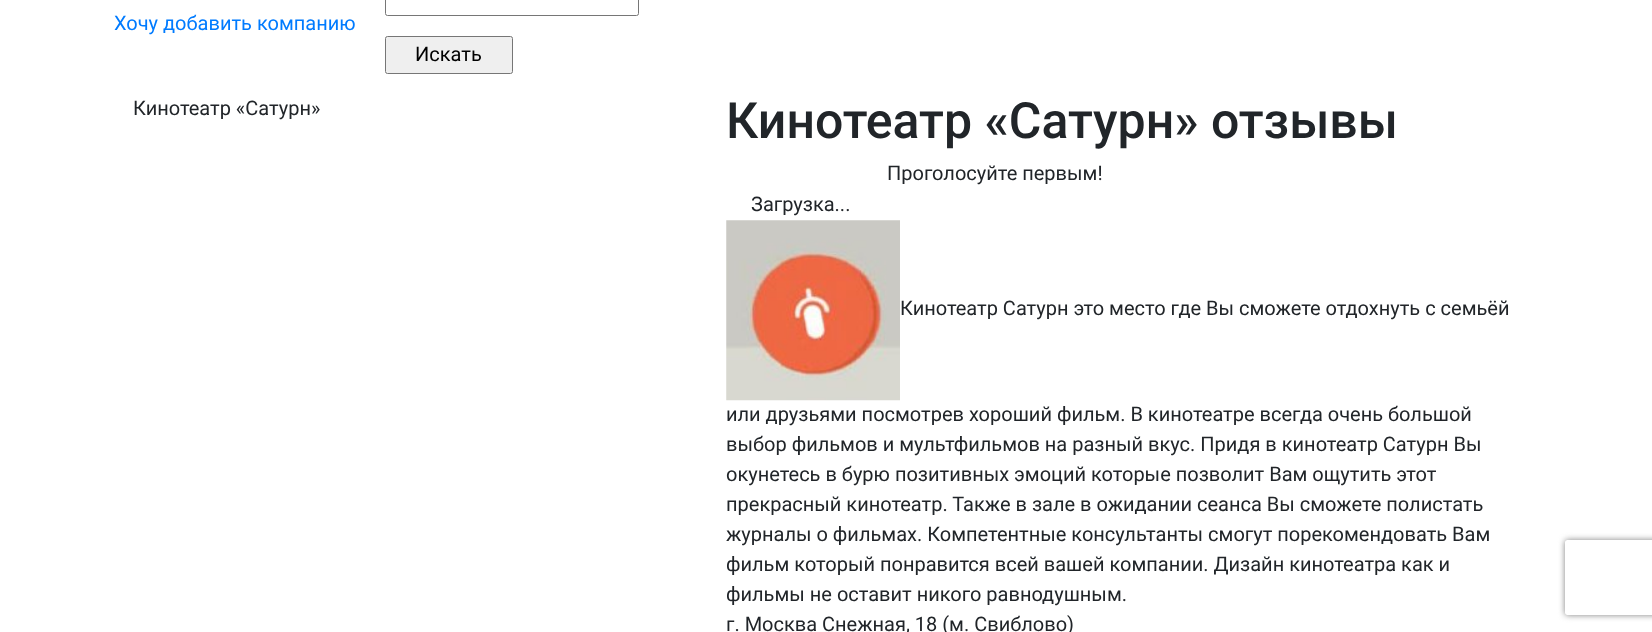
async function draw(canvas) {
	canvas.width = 1652;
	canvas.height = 632;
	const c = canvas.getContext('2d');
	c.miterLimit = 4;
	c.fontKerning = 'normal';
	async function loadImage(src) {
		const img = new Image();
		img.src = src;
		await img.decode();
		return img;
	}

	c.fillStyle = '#fff';
	c.fillRect(0, 0, 1652, 632);
	c.font = '20px Roboto';
	c.fillStyle = '#007bff';
	c.fillText('Хочу добавить компанию', 114, 30);
	c.beginPath();
	c.roundRect(385.5, -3.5, 253, 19, 2);
	c.strokeStyle = '#767676';
	c.stroke();
	c.fillStyle = '#efefef';
	c.beginPath();
	c.roundRect(385.5, 36.5, 127, 37, 2);
	c.fill();
	c.stroke();
	c.fillStyle = '#000';
	c.fillText('Искать', 415, 61);
	c.fillStyle = '#212529';
	c.fillText('Кинотеатр «Сатурн»', 133, 115);
	c.font = '500 50px Roboto';
	c.fillText('Кинотеатр «Сатурн» отзывы', 726, 138);
	c.font = '20px Roboto';
	c.fillText('Проголосуйте первым!', 887, 180);
	c.fillText('Загрузка...', 751, 211);
	c.drawImage(await loadImage('img1.png'), 726, 220, 174, 181);
	for (const [text, x, y] of [
		['Кинотеатр Сатурн это место где Вы сможете отдохнуть с семьёй', 900, 315],
		['или друзьями посмотрев хороший фильм. В кинотеатре всегда очень большой', 726, 421],
		['выбор фильмов и мультфильмов на разный вкус. Придя в кинотеатр Сатурн Вы', 726, 451],
		['окунетесь в бурю позитивных эмоций которые позволит Вам ощутить этот', 726, 481],
		['прекрасный кинотеатр. Также в зале в ожидании сеанса Вы сможете полистать', 726, 511],
		['журналы о фильмах. Компетентные консультанты смогут порекомендовать Вам', 726, 541],
		['фильм который понравится всей вашей компании. Дизайн кинотеатра как и', 726, 571],
		['фильмы не оставит никого равнодушным.', 726, 601],
		['г. Москва Снежная, 18 (м. Свиблово)', 726, 631],
	]) {
		c.fillText(text, x, y);
	}
	c.save();
	c.beginPath();
	c.moveTo(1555, 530);
	c.lineTo(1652, 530);
	c.lineTo(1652, 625);
	c.lineTo(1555, 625);
	c.closePath();
	c.moveTo(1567.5, 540);
	c.lineTo(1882.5, 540);
	c.bezierCurveTo(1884, 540, 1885, 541, 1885, 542.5);
	c.lineTo(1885, 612.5);
	c.bezierCurveTo(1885, 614, 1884, 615, 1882.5, 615);
	c.lineTo(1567.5, 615);
	c.bezierCurveTo(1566, 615, 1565, 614, 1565, 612.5);
	c.lineTo(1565, 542.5);
	c.bezierCurveTo(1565, 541, 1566, 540, 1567.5, 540);
	c.closePath();
	c.clip('evenodd');
	c.fillStyle = '#808080';
	c.filter = 'blur(3px)';
	c.beginPath();
	c.roundRect(1565, 540, 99, 75, 2.5);
	c.fill();
	c.filter = 'none';
	c.restore();
}

draw(document.querySelector('canvas'));
